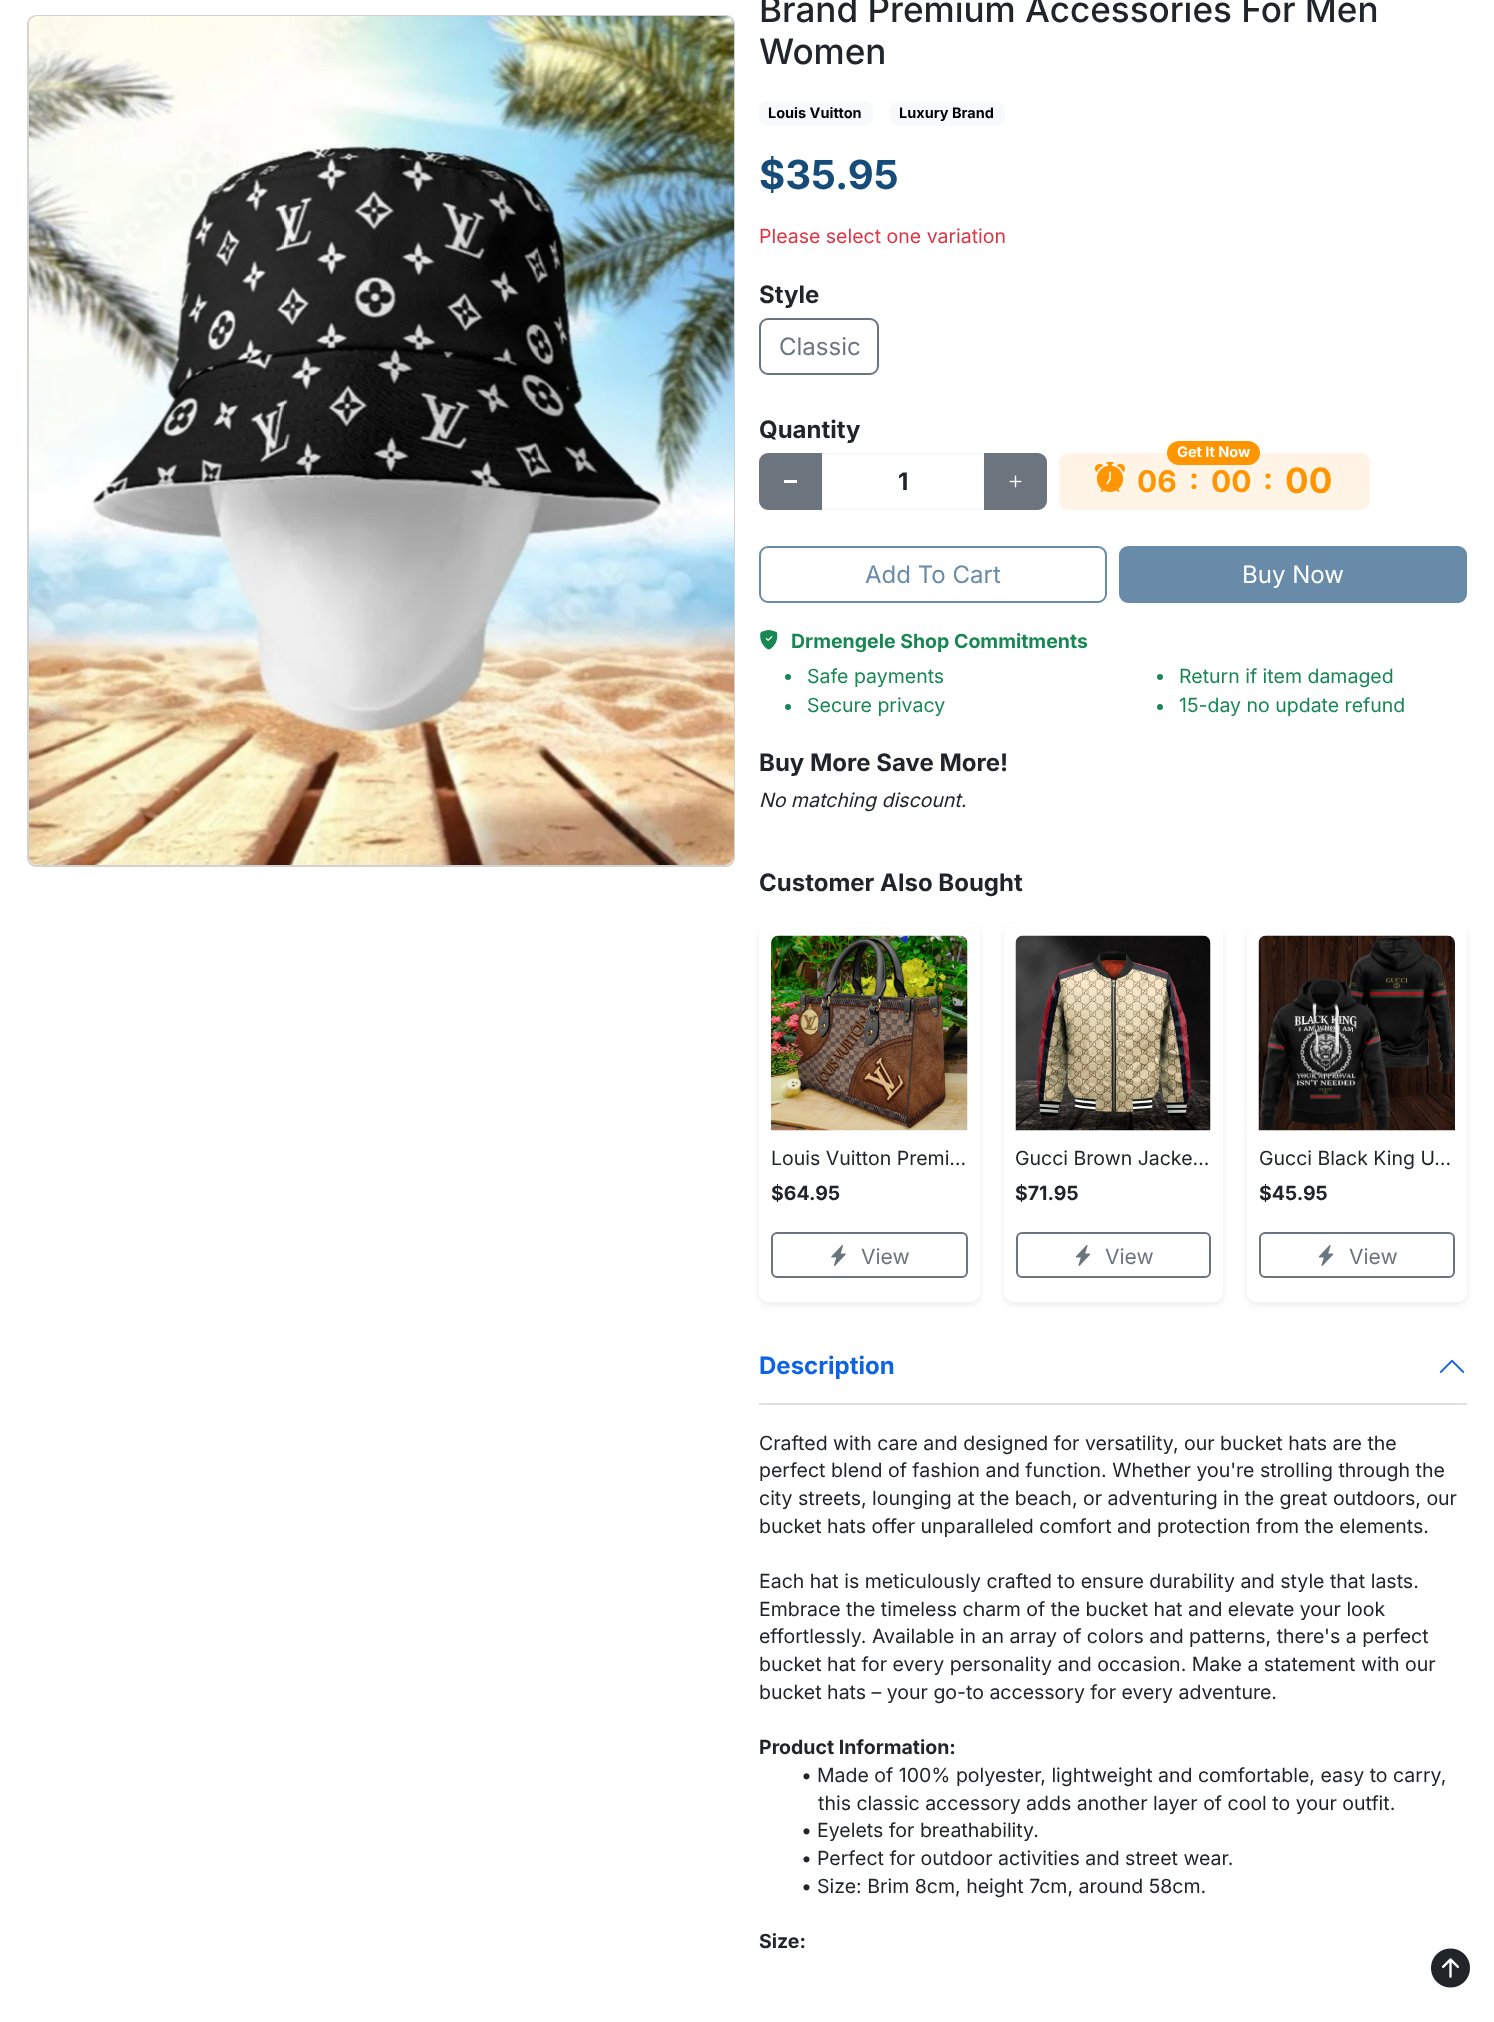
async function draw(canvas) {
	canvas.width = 1494;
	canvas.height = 2022;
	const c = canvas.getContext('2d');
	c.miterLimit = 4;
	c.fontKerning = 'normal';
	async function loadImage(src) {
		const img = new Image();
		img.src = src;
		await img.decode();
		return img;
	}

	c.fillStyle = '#fff';
	c.fillRect(0, 0, 1494, 2022);
	c.beginPath();
	c.roundRect(28, 16, 706, 850, 8);
	c.strokeStyle = '#d2d2d2';
	c.lineWidth = 2;
	c.stroke();
	c.drawImage(await loadImage('img1.png'), 29, 16, 705, 849);
	c.font = '500 35.1px Inter';
	c.fillStyle = '#212529';
	c.fillText('Brand Premium Accessories For Men', 759, 22);
	c.fillText('Women', 759, 64);
	c.fillStyle = '#f8f9fa';
	c.beginPath();
	c.roundRect(759, 101, 114, 25, 9);
	c.fill();
	c.font = 'bold 14.5px Inter';
	c.fillStyle = '#000';
	c.fillText('Louis Vuitton', 768, 118);
	c.fillStyle = '#f8f9fa';
	c.beginPath();
	c.roundRect(890, 101, 115, 25, 9);
	c.fill();
	c.fillStyle = '#000';
	c.fillText('Luxury Brand', 899, 118);
	c.font = 'bold 40px Inter';
	c.fillStyle = '#154c79';
	c.fillText('$35.95', 759, 189);
	c.font = '19.5px Inter';
	c.fillStyle = '#dc3545';
	c.fillText('Please select one variation', 759, 243);
	c.font = 'bold 24px Inter';
	c.fillStyle = '#212529';
	c.fillText('Style', 759, 303);
	c.beginPath();
	c.roundRect(760, 319, 118, 55, 8);
	c.strokeStyle = '#6c757d';
	c.stroke();
	c.font = '24px Inter';
	c.fillStyle = '#6c757d';
	c.fillText('Classic', 779, 355);
	c.font = 'bold 24px Inter';
	c.fillStyle = '#212529';
	c.fillText('Quantity', 759, 438);
	c.strokeStyle = '#f8f9fa';
	c.strokeRect(822, 454, 163, 55);
	c.fillStyle = '#6c757d';
	c.beginPath();
	c.roundRect(760, 454, 61, 55, [8, 0, 0, 8]);
	c.fill();
	c.strokeStyle = '#6c757d';
	c.stroke();
	c.fillStyle = '#fff';
	c.fillRect(784, 480, 13, 3);
	c.fillStyle = '#212529';
	c.fillText('1', 898, 490);
	c.fillStyle = '#6c757d';
	c.beginPath();
	c.roundRect(985, 454, 61, 55, [0, 8, 8, 0]);
	c.fill();
	c.stroke();
	c.drawImage(await loadImage('img2.png'), 1009, 475, 13, 13);
	c.fillStyle = '#fff4e6';
	c.beginPath();
	c.roundRect(1059, 453, 311, 57, 9);
	c.fill();
	c.fillStyle = '#ff9500';
	c.beginPath();
	c.roundRect(1167, 441, 93, 24, 12);
	c.fill();
	c.font = 'bold 14.5px Inter';
	c.fillStyle = '#fff';
	c.fillText('Get It Now', 1177, 457);
	c.drawImage(await loadImage('img3.png'), 1095, 462, 30, 30);
	c.font = 'bold 30px Inter';
	c.fillStyle = '#ff9500';
	for (const [text, x, y] of [
		['06', 1137, 492],
		[':', 1189, 489],
		['00', 1211, 492],
		[':', 1263, 489],
	]) {
		c.fillText(text, x, y);
	}
	c.font = 'bold 35.1px Inter';
	c.fillText('00', 1285, 493);
	c.beginPath();
	c.roundRect(760, 547, 346, 55, 8);
	c.strokeStyle = '#678ba8';
	c.stroke();
	c.font = '24px Inter';
	c.fillStyle = '#678ba8';
	c.fillText('Add To Cart', 865, 583);
	c.beginPath();
	c.roundRect(1120, 547, 346, 55, 8);
	c.fill();
	c.stroke();
	c.fillStyle = '#fff';
	c.fillText('Buy Now', 1242, 583);
	c.drawImage(await loadImage('img4.png'), 760, 630, 18, 20);
	c.font = 'bold 19.5px Inter';
	c.fillStyle = '#198754';
	c.fillText('Drmengele Shop Commitments', 791, 648);
	c.beginPath();
	c.arc(788, 677, 3, 0, 2 * Math.PI);
	c.fill();
	c.font = '19.5px Inter';
	c.fillText('Safe payments', 807, 683);
	c.beginPath();
	c.arc(788, 707, 3, 0, 2 * Math.PI);
	c.fill();
	c.fillText('Secure privacy', 807, 712);
	c.beginPath();
	c.arc(1160, 677, 3, 0, 2 * Math.PI);
	c.fill();
	c.fillText('Return if item damaged', 1179, 683);
	c.beginPath();
	c.arc(1160, 707, 3, 0, 2 * Math.PI);
	c.fill();
	c.fillText('15-day no update refund', 1179, 712);
	c.font = 'bold 24px Inter';
	c.fillStyle = '#212529';
	c.fillText('Buy More Save More!', 759, 771);
	c.font = 'italic 19.5px Inter';
	c.fillText('No matching discount.', 759, 807);
	c.font = 'bold 24px Inter';
	c.fillText('Customer Also Bought', 759, 891);
	c.fillStyle = '#00000012';
	c.filter = 'blur(3px)';
	c.beginPath();
	c.roundRect(759, 927, 221, 378, 9);
	c.fill();
	c.filter = 'none';
	c.fillStyle = '#fff';
	c.beginPath();
	c.roundRect(759, 924, 221, 378, 9);
	c.fill();
	c.drawImage(await loadImage('img5.png'), 771, 935, 197, 196);
	c.font = '19.5px Inter';
	c.fillStyle = '#212529';
	c.fillText('Louis Vuitton Premi…', 771, 1165);
	c.font = 'bold 19.5px Inter';
	c.fillText('$64.95', 771, 1200);
	c.beginPath();
	c.roundRect(772, 1233, 195, 44, 5);
	c.strokeStyle = '#6c757d';
	c.stroke();
	c.drawImage(await loadImage('img6.png'), 831, 1245, 15, 21);
	c.font = '21px Inter';
	c.fillStyle = '#6c757d';
	c.fillText('View', 861, 1264);
	c.fillStyle = '#00000012';
	c.filter = 'blur(3px)';
	c.beginPath();
	c.roundRect(1004, 927, 219, 378, 9);
	c.fill();
	c.filter = 'none';
	c.fillStyle = '#fff';
	c.beginPath();
	c.roundRect(1004, 924, 219, 378, 9);
	c.fill();
	c.drawImage(await loadImage('img7.png'), 1015, 935, 196, 196);
	c.font = '19.5px Inter';
	c.fillStyle = '#212529';
	c.fillText('Gucci Brown Jacke…', 1015, 1165);
	c.font = 'bold 19.5px Inter';
	c.fillText('$71.95', 1015, 1200);
	c.beginPath();
	c.roundRect(1017, 1233, 193, 44, 5);
	c.stroke();
	c.drawImage(await loadImage('img8.png'), 1075, 1245, 16, 21);
	c.font = '21px Inter';
	c.fillStyle = '#6c757d';
	c.fillText('View', 1105, 1264);
	c.fillStyle = '#00000012';
	c.filter = 'blur(3px)';
	c.beginPath();
	c.roundRect(1247, 927, 220, 378, 9);
	c.fill();
	c.filter = 'none';
	c.fillStyle = '#fff';
	c.beginPath();
	c.roundRect(1247, 924, 220, 378, 9);
	c.fill();
	c.drawImage(await loadImage('img9.png'), 1258, 935, 197, 196);
	c.font = '19.5px Inter';
	c.fillStyle = '#212529';
	c.fillText('Gucci Black King U…', 1259, 1165);
	c.font = 'bold 19.5px Inter';
	c.fillText('$45.95', 1259, 1200);
	c.beginPath();
	c.roundRect(1260, 1233, 194, 44, 5);
	c.stroke();
	c.drawImage(await loadImage('img8.png'), 1318, 1245, 16, 21);
	c.font = '21px Inter';
	c.fillStyle = '#6c757d';
	c.fillText('View', 1349, 1264);
	c.fillStyle = '#dee2e6';
	c.fillRect(759, 1403, 708, 2);
	c.font = 'bold 24px Inter';
	c.fillStyle = '#0c63e4';
	c.fillText('Description', 759, 1374);
	c.drawImage(await loadImage('img10.png'), 1439, 1359, 26, 14);
	c.font = '19.5px Inter';
	c.fillStyle = '#212529';
	for (const [text, x, y] of [
		['Crafted with care and designed for versatility, our bucket hats are the', 759, 1450],
		['perfect blend of fashion and function. Whether you\'re strolling through the', 759, 1477],
		['city streets, lounging at the beach, or adventuring in the great outdoors, our', 759, 1505],
		['bucket hats offer unparalleled comfort and protection from the elements.', 759, 1533],
		['Each hat is meticulously crafted to ensure durability and style that lasts.', 759, 1588],
		['Embrace the timeless charm of the bucket hat and elevate your look', 759, 1616],
		['effortlessly. Available in an array of colors and patterns, there\'s a perfect', 759, 1643],
		['bucket hat for every personality and occasion. Make a statement with our', 759, 1671],
		['bucket hats – your go-to accessory for every adventure.', 759, 1699],
	]) {
		c.fillText(text, x, y);
	}
	c.font = 'bold 19.5px Inter';
	c.fillText('Product Information:', 759, 1754);
	c.font = '19.5px Inter';
	for (const [text, x, y] of [
		['•', 801, 1782],
		['Made of 100% polyester, lightweight and comfortable, easy to carry,', 817, 1782],
		['this classic accessory adds another layer of cool to your outfit.', 818, 1810],
		['•', 801, 1837],
		['Eyelets for breathability.', 817, 1837],
		['•', 801, 1865],
		['Perfect for outdoor activities and street wear.', 817, 1865],
		['•', 801, 1893],
		['Size: Brim 8cm, height 7cm, around 58cm.', 817, 1893],
	]) {
		c.fillText(text, x, y);
	}
	c.font = 'bold 19.5px Inter';
	c.fillText('Size:', 759, 1948);
	c.drawImage(await loadImage('img11.png'), 1431, 1948, 39, 40);
}

draw(document.querySelector('canvas'));
